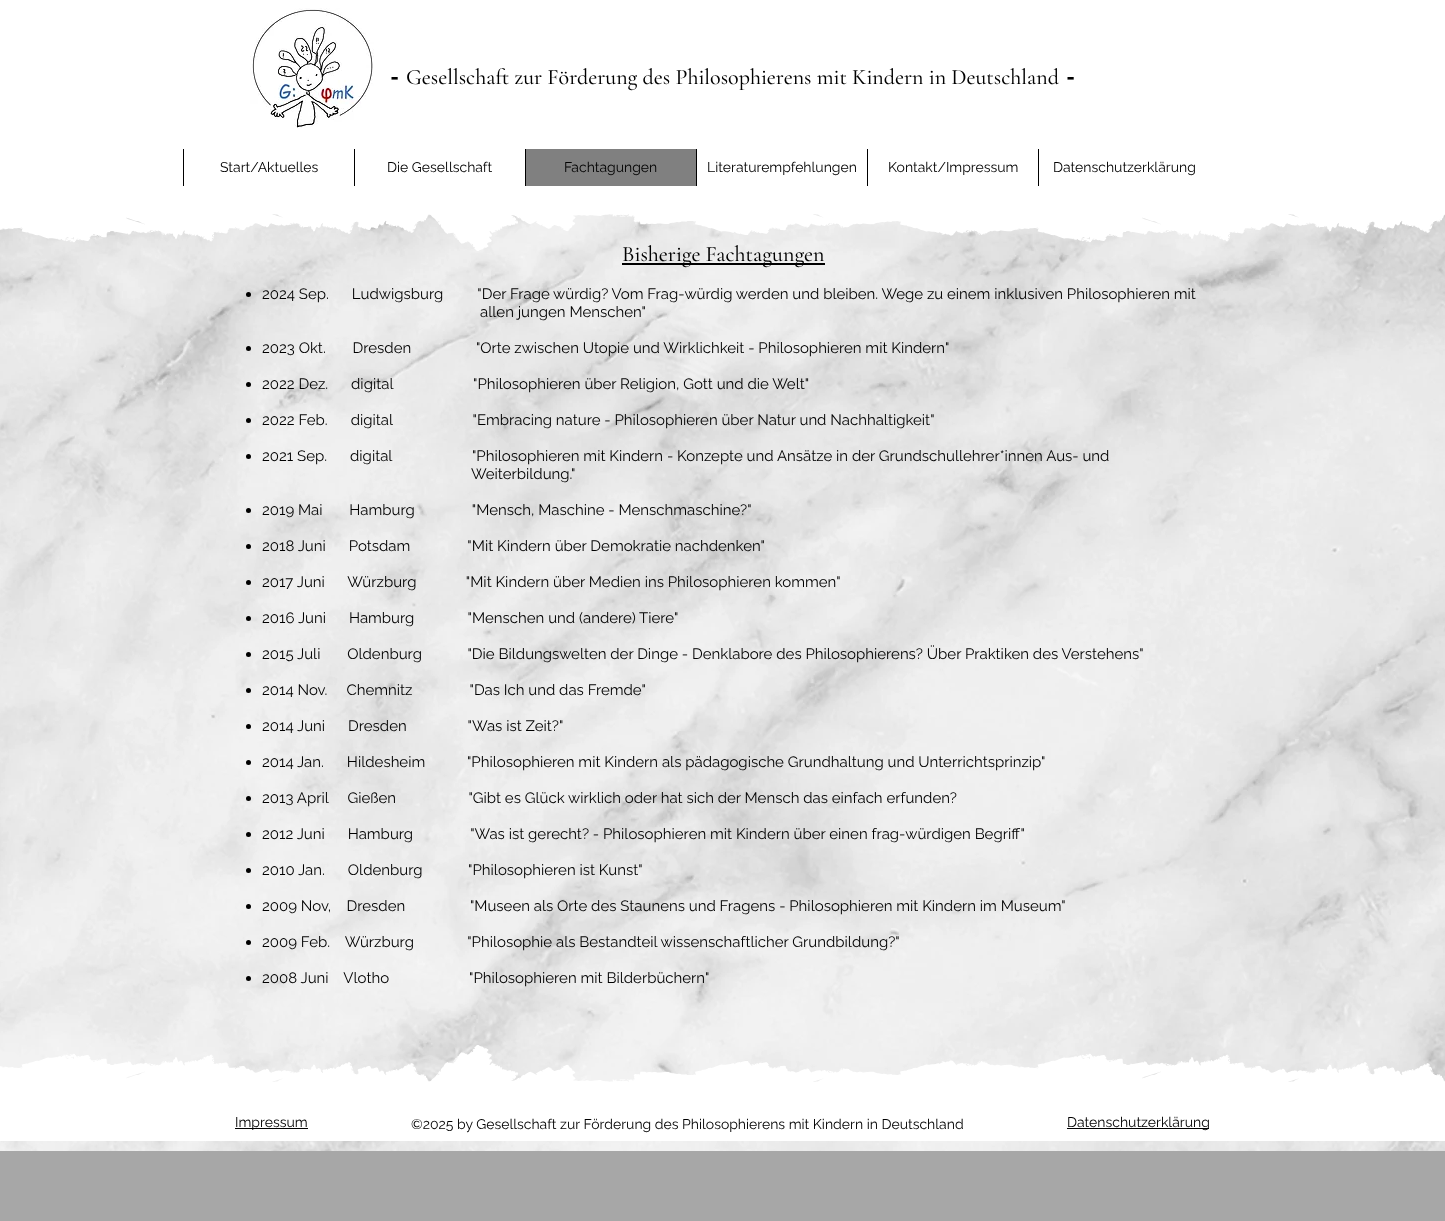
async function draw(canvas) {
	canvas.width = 1445;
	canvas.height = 1221;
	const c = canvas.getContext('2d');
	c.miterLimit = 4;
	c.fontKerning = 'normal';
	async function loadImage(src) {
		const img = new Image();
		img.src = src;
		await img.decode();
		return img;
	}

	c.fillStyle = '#a7a7a7';
	c.fillRect(0, 0, 1445, 1221);
	c.fillStyle = '#fff';
	c.fillRect(0, 0, 1445, 201);
	c.drawImage(await loadImage('img1.png'), 250, 8, 124, 120);
	c.font = 'bold 22px Liberation Mono';
	c.fillStyle = '#000';
	c.fillText('-', 388, 84);
	c.font = '500 22px Cormorant Garamond';
	c.fillText('Gesellschaft zur Förderung des Philosophierens mit Kindern in Deutschland', 406, 84);
	c.font = 'bold 22px Liberation Mono';
	c.fillText('-', 1064, 84);
	c.fillRect(183, 149, 1, 37);
	c.font = '14px Raleway';
	c.fillText('Start/Aktuelles', 220, 172);
	c.fillRect(354, 149, 1, 37);
	c.fillText('Die Gesellschaft', 387, 172);
	c.fillStyle = '#808080';
	c.fillRect(526, 149, 170, 37);
	c.fillStyle = '#000';
	c.fillRect(525, 149, 1, 37);
	c.fillText('Fachtagungen', 564, 172);
	c.fillRect(696, 149, 1, 37);
	c.fillText('Literaturempfehlungen', 707, 172);
	c.fillRect(867, 149, 1, 37);
	c.fillText('Kontakt/Impressum', 888, 172);
	c.fillRect(1038, 149, 1, 37);
	c.fillText('Datenschutzerklärung', 1053, 172);
	c.drawImage(await loadImage('img4.png'), 0, 214, 1445, 937);
	c.drawImage(await loadImage('img2.png'), 0, 201, 1445, 50);
	c.fillRect(622, 263, 203, 2);
	c.font = '500 22px Cormorant Garamond';
	c.fillText('Bisherige Fachtagungen', 622, 261);
	c.beginPath();
	c.arc(248.5, 294.5, 2.5, 0, 2 * Math.PI);
	c.fill();
	c.font = '15px Raleway';
	c.fillText('2024 Sep.      Ludwigsburg         "Der Frage würdig? Vom Frag-würdig werden und bleiben. Wege zu einem inklusiven Philosophieren mit', 262, 299);
	c.fillText('allen jungen Menschen"', 480, 317);
	c.beginPath();
	c.arc(248.5, 348.5, 2.5, 0, 2 * Math.PI);
	c.fill();
	c.fillText('2023 Okt.       Dresden                 "Orte zwischen Utopie und Wirklichkeit - Philosophieren mit Kindern"', 262, 353);
	c.beginPath();
	c.arc(248.5, 384.5, 2.5, 0, 2 * Math.PI);
	c.fill();
	c.fillText('2022 Dez.      digital                     "Philosophieren über Religion, Gott und die Welt"', 262, 389);
	c.beginPath();
	c.arc(248.5, 420.5, 2.5, 0, 2 * Math.PI);
	c.fill();
	c.fillText('2022 Feb.      digital                     "Embracing nature - Philosophieren über Natur und Nachhaltigkeit"', 262, 425);
	c.beginPath();
	c.arc(248.5, 456.5, 2.5, 0, 2 * Math.PI);
	c.fill();
	c.fillText('2021 Sep.      digital                     "Philosophieren mit Kindern - Konzepte und Ansätze in der Grundschullehrer*innen Aus- und', 262, 461);
	c.fillText('Weiterbildung."', 471, 479);
	c.beginPath();
	c.arc(248.5, 510.5, 2.5, 0, 2 * Math.PI);
	c.fill();
	c.fillText('2019 Mai       Hamburg               "Mensch, Maschine - Menschmaschine?"', 262, 515);
	c.beginPath();
	c.arc(248.5, 546.5, 2.5, 0, 2 * Math.PI);
	c.fill();
	c.fillText('2018 Juni      Potsdam               "Mit Kindern über Demokratie nachdenken"', 262, 551);
	c.beginPath();
	c.arc(248.5, 582.5, 2.5, 0, 2 * Math.PI);
	c.fill();
	c.fillText('2017 Juni      Würzburg             "Mit Kindern über Medien ins Philosophieren kommen"', 262, 587);
	c.beginPath();
	c.arc(248.5, 618.5, 2.5, 0, 2 * Math.PI);
	c.fill();
	c.fillText('2016 Juni      Hamburg              "Menschen und (andere) Tiere"', 262, 623);
	c.beginPath();
	c.arc(248.5, 654.5, 2.5, 0, 2 * Math.PI);
	c.fill();
	c.fillText('2015 Juli       Oldenburg            "Die Bildungswelten der Dinge - Denklabore des Philosophierens? Über Praktiken des Verstehens"', 262, 659);
	c.beginPath();
	c.arc(248.5, 690.5, 2.5, 0, 2 * Math.PI);
	c.fill();
	c.fillText('2014 Nov.     Chemnitz               "Das Ich und das Fremde"', 262, 695);
	c.beginPath();
	c.arc(248.5, 726.5, 2.5, 0, 2 * Math.PI);
	c.fill();
	c.fillText('2014 Juni      Dresden                "Was ist Zeit?"', 262, 731);
	c.beginPath();
	c.arc(248.5, 762.5, 2.5, 0, 2 * Math.PI);
	c.fill();
	c.fillText('2014 Jan.      Hildesheim           "Philosophieren mit Kindern als pädagogische Grundhaltung und Unterrichtsprinzip"', 262, 767);
	c.beginPath();
	c.arc(248.5, 798.5, 2.5, 0, 2 * Math.PI);
	c.fill();
	c.fillText('2013 April     Gießen                   "Gibt es Glück wirklich oder hat sich der Mensch das einfach erfunden?', 262, 803);
	c.beginPath();
	c.arc(248.5, 834.5, 2.5, 0, 2 * Math.PI);
	c.fill();
	c.fillText('2012 Juni      Hamburg               "Was ist gerecht? - Philosophieren mit Kindern über einen frag-würdigen Begriff"', 262, 839);
	c.beginPath();
	c.arc(248.5, 870.5, 2.5, 0, 2 * Math.PI);
	c.fill();
	c.fillText('2010 Jan.      Oldenburg            "Philosophieren ist Kunst"', 262, 875);
	c.beginPath();
	c.arc(248.5, 906.5, 2.5, 0, 2 * Math.PI);
	c.fill();
	c.fillText('2009 Nov,    Dresden                 "Museen als Orte des Staunens und Fragens - Philosophieren mit Kindern im Museum"', 262, 911);
	c.beginPath();
	c.arc(248.5, 942.5, 2.5, 0, 2 * Math.PI);
	c.fill();
	c.fillText('2009 Feb.    Würzburg              "Philosophie als Bestandteil wissenschaftlicher Grundbildung?"', 262, 947);
	c.beginPath();
	c.arc(248.5, 978.5, 2.5, 0, 2 * Math.PI);
	c.fill();
	c.fillText('2008 Juni    Vlotho                     "Philosophieren mit Bilderbüchern"', 262, 983);
	c.drawImage(await loadImage('img3.png'), 0, 1045, 1445, 50);
	c.fillStyle = '#fff';
	c.fillRect(0, 1095, 1445, 46);
	c.fillStyle = '#000';
	c.fillRect(235, 1128, 73, 1);
	c.font = '14px Raleway';
	c.fillText('Impressum', 235, 1127);
	c.fillText('©2025 by Gesellschaft zur Förderung des Philosophierens mit Kindern in Deutschland', 411, 1129);
	c.fillRect(1067, 1128, 142, 1);
	c.fillText('Datenschutzerklärung', 1067, 1127);
}

draw(document.querySelector('canvas'));
